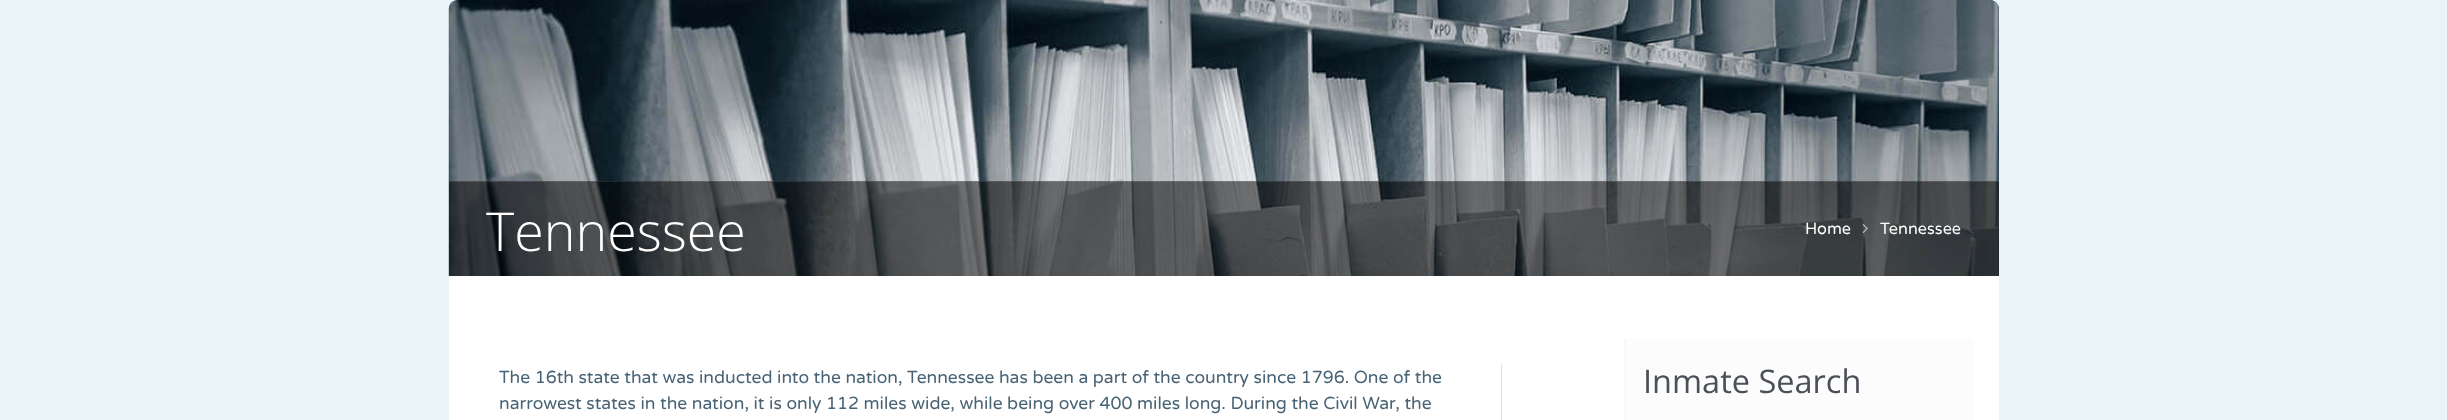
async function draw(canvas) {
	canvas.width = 2447;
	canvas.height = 420;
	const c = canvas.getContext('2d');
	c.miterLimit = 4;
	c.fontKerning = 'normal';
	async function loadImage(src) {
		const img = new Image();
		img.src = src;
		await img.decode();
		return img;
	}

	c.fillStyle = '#e8f4f7';
	c.fillRect(0, 0, 2447, 420);
	c.fillStyle = '#0c4474';
	c.beginPath();
	c.roundRect(449, 0, 1550, 276, [9, 9, 0, 0]);
	c.fill();
	c.drawImage(await loadImage('img1.png'), 448, 0, 1551, 277);
	c.fillStyle = '#00000087';
	c.fillRect(449, 181, 1550, 95);
	c.fillStyle = '#ffffff1a';
	c.fillRect(449, 181, 1550, 1);
	c.font = '300 53.75px Open Sans';
	c.fillStyle = '#fff';
	c.fillText('Tennessee', 486, 251);
	c.font = '16.25px Varela Round';
	c.fillText('Home', 1805, 234);
	c.drawImage(await loadImage('img2.png'), 1862, 224, 6, 9);
	c.fillText('Tennessee', 1880, 234);
	c.fillRect(449, 276, 1550, 144);
	c.fillStyle = '#dfe3e5';
	c.fillRect(1501, 364, 1, 56);
	c.font = '17.5px Varela Round';
	c.fillStyle = '#486375';
	c.fillText('The 16th state that was inducted into the nation, Tennessee has been a part of the country since 1796. One of the', 499, 383);
	c.fillText('narrowest states in the nation, it is only 112 miles wide, while being over 400 miles long. During the Civil War, the', 499, 409);
	c.fillStyle = '#fcfcfc';
	c.fillRect(1626, 339, 348, 81);
	c.fillStyle = '#f7f7f7';
	c.fillRect(1624, 339, 2, 81);
	c.font = '32.5px Open Sans';
	c.fillStyle = '#4b4f58';
	c.fillText('Inmate Search', 1643, 393);
}

draw(document.querySelector('canvas'));
